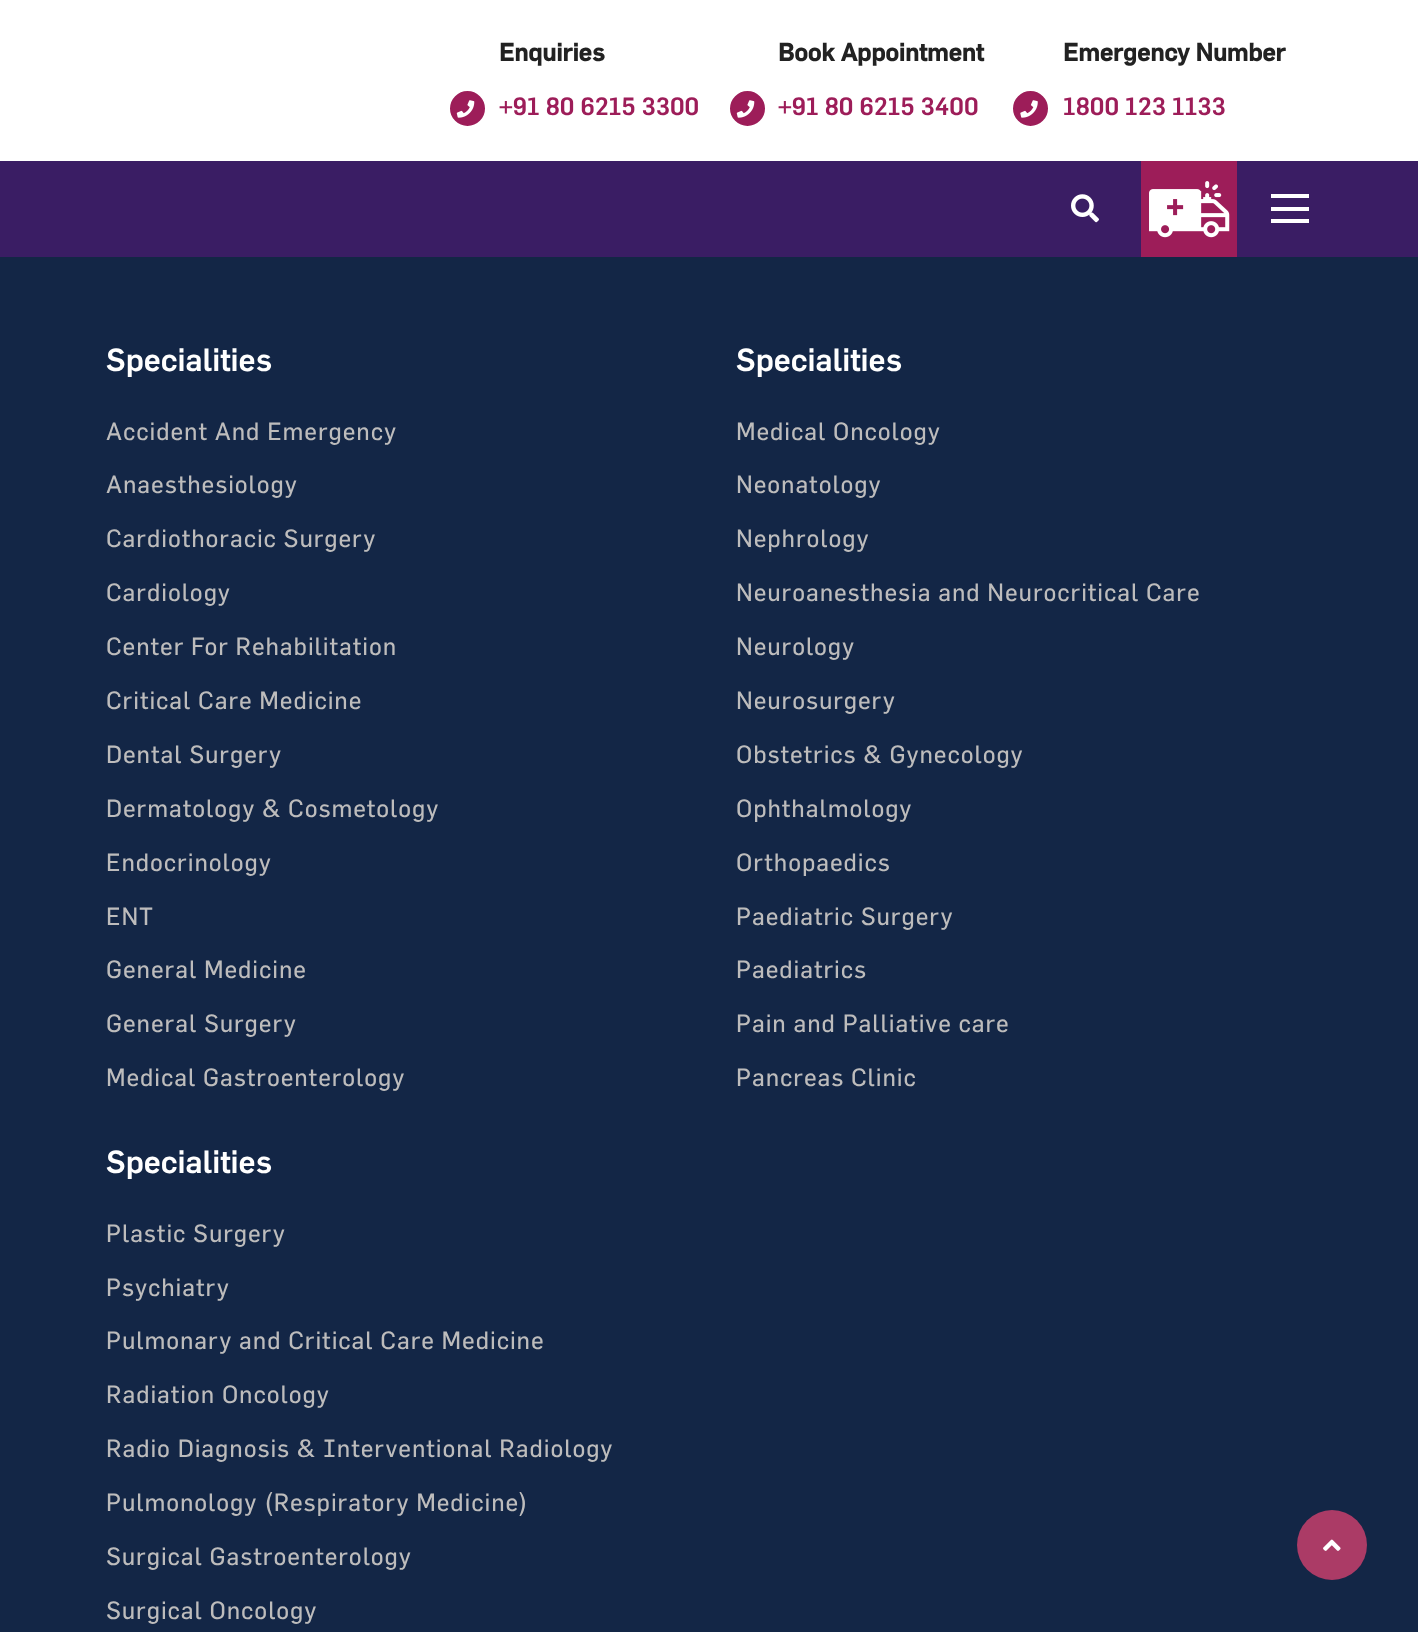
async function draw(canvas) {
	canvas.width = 1418;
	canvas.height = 1632;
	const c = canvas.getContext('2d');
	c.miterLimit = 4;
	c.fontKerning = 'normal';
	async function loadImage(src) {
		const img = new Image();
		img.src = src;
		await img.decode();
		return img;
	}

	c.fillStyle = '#132646';
	c.fillRect(0, 0, 1418, 1632);
	c.fillStyle = '#fff';
	c.fillRect(0, 0, 1418, 161);
	c.font = 'bold 24.5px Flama';
	c.fillStyle = '#222';
	c.fillText('Enquiries', 499, 61);
	c.fillStyle = '#9d1d59';
	c.beginPath();
	c.arc(467.5, 108.5, 16.5, 0, 2 * Math.PI);
	c.fill();
	c.strokeStyle = '#9d1d59';
	c.lineWidth = 2;
	c.stroke();
	c.drawImage(await loadImage('img1.png'), 456, 100, 19, 18);
	c.font = '500 24.5px Flama';
	c.fillText('+91 80 6215 3300', 499, 115);
	c.font = 'bold 24.5px Flama';
	c.fillStyle = '#222';
	c.fillText('Book Appointment', 778, 61);
	c.fillStyle = '#9d1d59';
	c.beginPath();
	c.arc(747.5, 108.5, 16.5, 0, 2 * Math.PI);
	c.fill();
	c.stroke();
	c.drawImage(await loadImage('img1.png'), 736, 100, 19, 18);
	c.font = '500 24.5px Flama';
	c.fillText('+91 80 6215 3400', 778, 115);
	c.font = 'bold 24.5px Flama';
	c.fillStyle = '#222';
	c.fillText('Emergency Number', 1063, 61);
	c.fillStyle = '#9d1d59';
	c.beginPath();
	c.arc(1030.5, 108.5, 16.5, 0, 2 * Math.PI);
	c.fill();
	c.stroke();
	c.drawImage(await loadImage('img2.png'), 1020, 100, 18, 18);
	c.font = '500 24.5px Flama';
	c.fillText('1800 123 1133', 1063, 115);
	c.fillStyle = '#3a1d64';
	c.fillRect(0, 161, 1418, 96);
	c.drawImage(await loadImage('img3.png'), 1071, 194, 28, 29);
	c.fillStyle = '#fff';
	c.fillRect(1149, 181, 81, 57);
	c.drawImage(await loadImage('img4.png'), 1141, 161, 96, 96);
	for (const [x, y, w, h, color] of [
		[1271, 194, 38, 4, '#fff'],
		[1271, 219, 38, 4, '#fff'],
		[1271, 207, 38, 4, '#fff'],
	]) {
		c.fillStyle = color;
		c.fillRect(x, y, w, h);
	}
	c.font = '500 31.5px Flama';
	c.fillText('Specialities', 106, 371);
	c.letterSpacing = '0.9px';
	c.font = '500 24.5px "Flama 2"';
	c.fillStyle = '#bdbcbc';
	for (const [text, x, y] of [
		['Accident And Emergency', 106, 440],
		['Anaesthesiology', 106, 493],
		['Cardiothoracic Surgery', 106, 547],
		['Cardiology', 106, 601],
		['Center For Rehabilitation', 106, 655],
		['Critical Care Medicine', 106, 709],
		['Dental Surgery', 106, 763],
		['Dermatology & Cosmetology', 106, 817],
		['Endocrinology', 106, 871],
		['ENT', 106, 925],
		['General Medicine', 106, 978],
		['General Surgery', 106, 1032],
		['Medical Gastroenterology', 106, 1086],
	]) {
		c.fillText(text, x, y);
	}
	c.letterSpacing = '0px';
	c.font = '500 31.5px Flama';
	c.fillStyle = '#fff';
	c.fillText('Specialities', 736, 371);
	c.letterSpacing = '0.9px';
	c.font = '500 24.5px "Flama 2"';
	c.fillStyle = '#bdbcbc';
	for (const [text, x, y] of [
		['Medical Oncology', 736, 440],
		['Neonatology', 736, 493],
		['Nephrology', 736, 547],
		['Neuroanesthesia and Neurocritical Care', 736, 601],
		['Neurology', 736, 655],
		['Neurosurgery', 736, 709],
		['Obstetrics & Gynecology', 736, 763],
		['Ophthalmology', 736, 817],
		['Orthopaedics', 736, 871],
		['Paediatric Surgery', 736, 925],
		['Paediatrics', 736, 978],
		['Pain and Palliative care', 736, 1032],
		['Pancreas Clinic', 736, 1086],
	]) {
		c.fillText(text, x, y);
	}
	c.letterSpacing = '0px';
	c.font = '500 31.5px Flama';
	c.fillStyle = '#fff';
	c.fillText('Specialities', 106, 1173);
	c.letterSpacing = '0.9px';
	c.font = '500 24.5px "Flama 2"';
	c.fillStyle = '#bdbcbc';
	for (const [text, x, y] of [
		['Plastic Surgery', 106, 1242],
		['Psychiatry', 106, 1296],
		['Pulmonary and Critical Care Medicine', 106, 1349],
		['Radiation Oncology', 106, 1403],
		['Radio Diagnosis & Interventional Radiology', 106, 1457],
		['Pulmonology (Respiratory Medicine)', 106, 1511],
		['Surgical Gastroenterology', 106, 1565],
		['Surgical Oncology', 106, 1619],
	]) {
		c.fillText(text, x, y);
	}
	c.fillStyle = '#ab3b66';
	c.beginPath();
	c.arc(1332, 1545, 35, 0, 2 * Math.PI);
	c.fill();
	c.drawImage(await loadImage('img5.png'), 1323, 1539, 18, 12);
}

draw(document.querySelector('canvas'));
